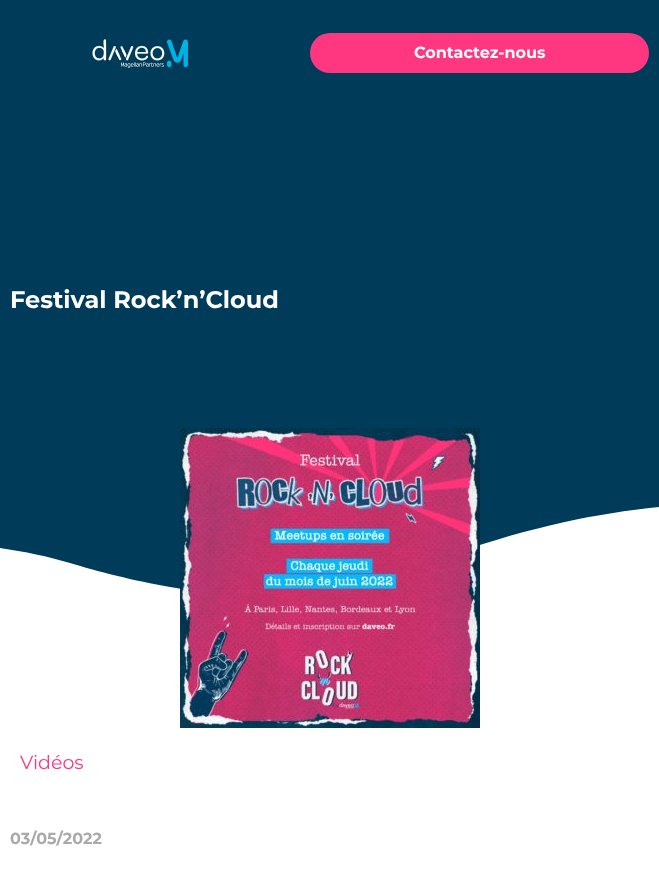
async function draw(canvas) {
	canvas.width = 659;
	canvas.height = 886;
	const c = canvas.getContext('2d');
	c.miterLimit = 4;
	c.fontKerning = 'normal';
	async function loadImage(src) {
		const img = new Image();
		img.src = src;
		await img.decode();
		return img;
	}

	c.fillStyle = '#fff';
	c.fillRect(0, 0, 659, 886);
	c.fillStyle = '#003c5a';
	c.fillRect(0, 0, 659, 589);
	c.drawImage(await loadImage('img1.png'), 92, 39, 96, 29);
	c.fillStyle = '#ff3781';
	c.beginPath();
	c.roundRect(310, 33, 339, 40, 20);
	c.fill();
	c.font = 'bold 16px Montserrat';
	c.fillStyle = '#fff';
	c.fillText('Contactez-nous', 414, 58);
	c.font = 'bold 24px Montserrat';
	c.fillText('Festival Rock’n’Cloud', 10, 308);
	c.beginPath();
	c.moveTo(232, 594);
	c.bezierCurveTo(260, 597, 297, 594, 327, 589);
	c.bezierCurveTo(356, 584, 416, 566, 453, 554);
	c.bezierCurveTo(548, 521, 620, 509, 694, 504);
	c.bezierCurveTo(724, 502, 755, 500, 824, 506);
	c.bezierCurveTo(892, 512, 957, 532, 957, 532);
	c.lineTo(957, 601);
	c.lineTo(-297, 601);
	c.lineTo(-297, 571);
	c.bezierCurveTo(-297, 571, -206, 538, -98, 540);
	c.bezierCurveTo(-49, 541, 18, 547, 70, 563);
	c.bezierCurveTo(96, 571, 135, 581, 170, 587);
	c.bezierCurveTo(204, 593, 219, 594, 232, 594);
	c.closePath();
	c.fill();
	c.drawImage(await loadImage('img2.png'), 180, 428, 300, 300);
	c.font = '19px Montserrat';
	c.fillStyle = '#ff3781';
	c.fillText('Vidéos', 20, 769);
	c.font = 'bold 16px Montserrat';
	c.fillStyle = '#aaa';
	c.fillText('03/05/2022', 10, 844);
}

draw(document.querySelector('canvas'));
